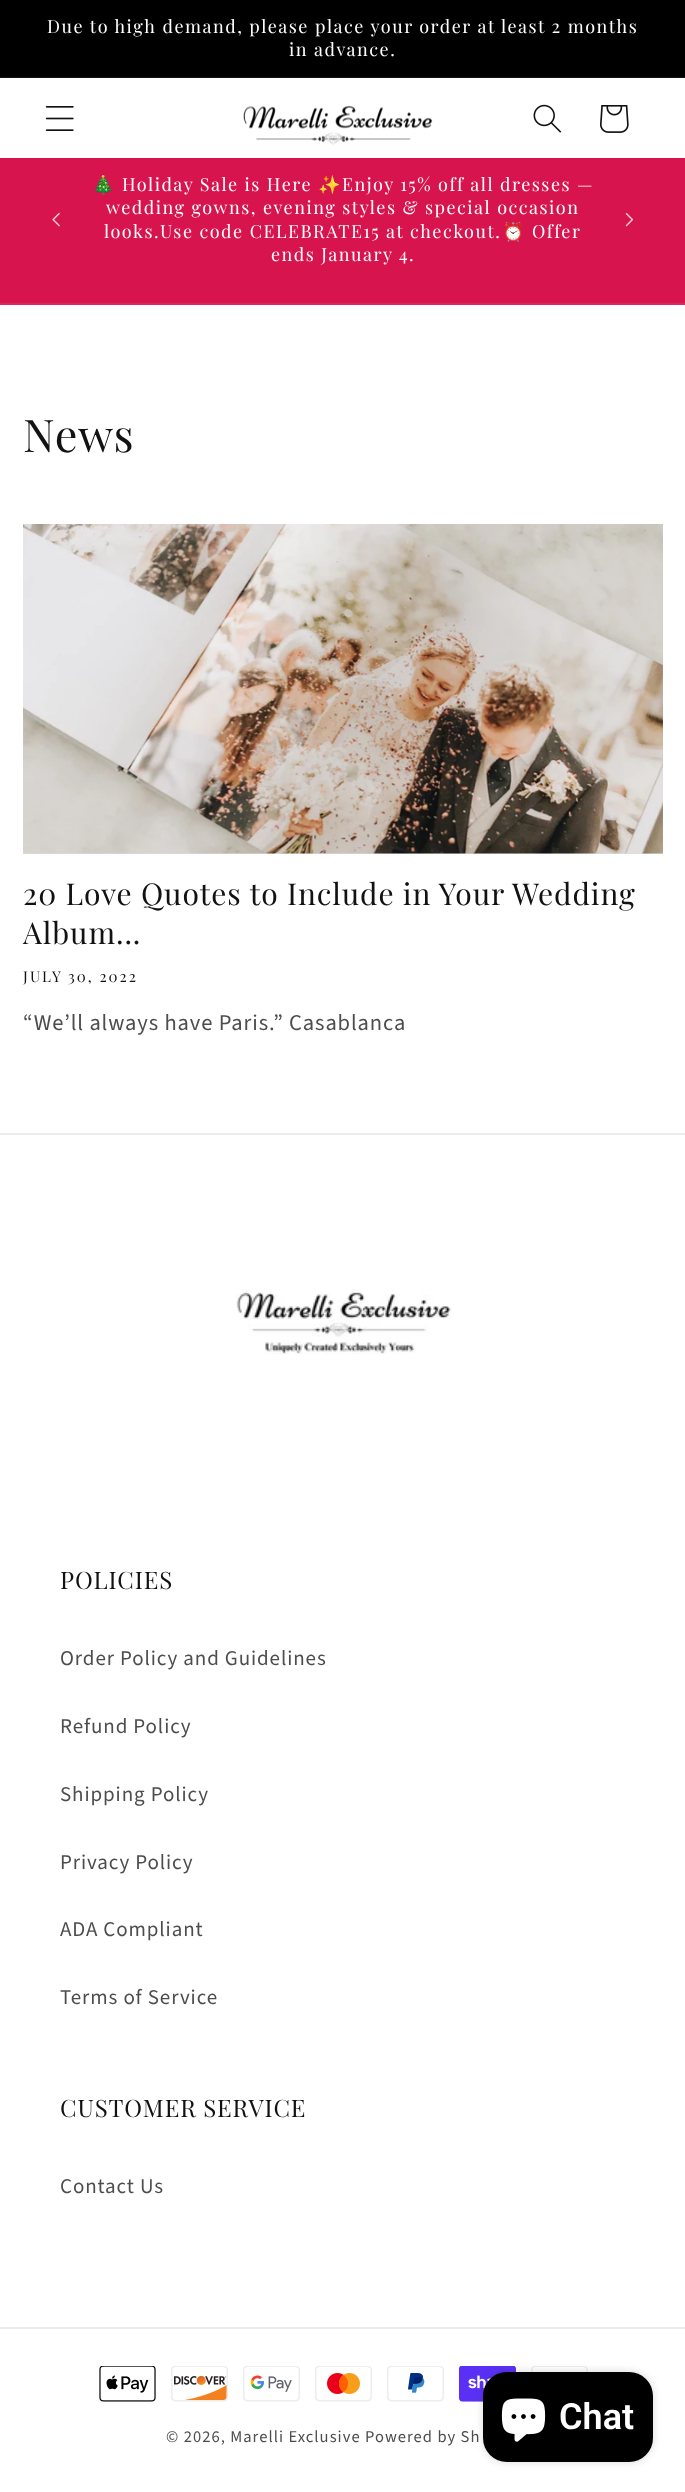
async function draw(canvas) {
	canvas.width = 685;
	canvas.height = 2492;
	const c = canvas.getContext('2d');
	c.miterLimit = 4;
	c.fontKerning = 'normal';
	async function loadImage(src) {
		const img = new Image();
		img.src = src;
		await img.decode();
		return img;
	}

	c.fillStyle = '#fff';
	c.fillRect(0, 0, 685, 2492);
	c.fillStyle = '#000';
	c.fillRect(0, 0, 685, 77);
	c.fillStyle = '#141414';
	c.fillRect(0, 77, 685, 1);
	c.letterSpacing = '1.5px';
	c.font = '18px Playfair Display';
	c.fillStyle = '#fff';
	c.fillText('Due to high demand, please place your order at least 2 months', 47, 33);
	c.fillText('in advance.', 289, 56);
	c.drawImage(await loadImage('img1.png'), 45, 106, 29, 25);
	c.drawImage(await loadImage('img2.png'), 243, 105, 190, 40);
	c.drawImage(await loadImage('img3.png'), 533, 104, 28, 29);
	c.drawImage(await loadImage('img4.png'), 600, 105, 29, 28);
	c.fillStyle = '#d7144e';
	c.fillRect(0, 158, 685, 145);
	c.fillStyle = '#da275c';
	c.fillRect(0, 303, 685, 2);
	c.drawImage(await loadImage('img5.png'), 52, 212, 8, 15);
	c.font = '18px Noto Color Emoji';
	c.fillStyle = '#fff';
	c.fillText('🎄', 92, 191);
	c.font = '18px Playfair Display';
	c.fillText('Holiday Sale is Here', 122, 191);
	c.font = '18px Noto Color Emoji';
	c.fillText('✨', 318, 191);
	c.font = '18px Playfair Display';
	for (const [text, x, y] of [
		['Enjoy 15% off all dresses —', 342, 191],
		['wedding gowns, evening styles & special occasion', 106, 214],
		['looks.Use code CELEBRATE15 at checkout.', 104, 238],
	]) {
		c.fillText(text, x, y);
	}
	c.font = '18px Noto Color Emoji';
	c.fillText('⏰', 502, 238);
	c.font = '18px Playfair Display';
	c.fillText('Offer', 532, 238);
	c.fillText('ends January 4.', 271, 261);
	c.drawImage(await loadImage('img6.png'), 625, 212, 9, 15);
	c.letterSpacing = '0.9px';
	c.font = '45px Playfair Display';
	c.fillStyle = '#121212';
	c.fillText('News', 23, 452);
	c.fillStyle = '#ddd';
	c.fillRect(23, 524, 640, 330);
	c.drawImage(await loadImage('img7.png'), 23, 524, 640, 330);
	c.font = '30px Playfair Display';
	c.fillStyle = '#121212';
	c.fillText('20 Love Quotes to Include in Your Wedding', 23, 905);
	c.fillText('Album...', 23, 944);
	c.letterSpacing = '2px';
	c.font = '15px Playfair Display';
	c.fillText('JULY 30, 2022', 23, 982);
	c.letterSpacing = '0.9px';
	c.font = '22.5px Source Sans Pro';
	c.fillStyle = '#4d4d4d';
	c.fillText('“We’ll always have Paris.” Casablanca', 23, 1030);
	c.fillStyle = '#ececec';
	c.fillRect(0, 1133, 685, 2);
	c.drawImage(await loadImage('img8.png'), 236, 1289, 215, 65);
	c.font = '24px Playfair Display';
	c.fillStyle = '#121212';
	c.fillText('POLICIES', 60, 1589);
	c.font = '21px Source Sans Pro';
	c.fillStyle = '#4d4d4d';
	for (const [text, x, y] of [
		['Order Policy and Guidelines', 60, 1665],
		['Refund Policy', 60, 1733],
		['Shipping Policy', 60, 1801],
		['Privacy Policy', 60, 1869],
		['ADA Compliant', 60, 1936],
		['Terms of Service', 60, 2004],
	]) {
		c.fillText(text, x, y);
	}
	c.font = '24px Playfair Display';
	c.fillStyle = '#121212';
	c.fillText('CUSTOMER SERVICE', 60, 2117);
	c.font = '21px Source Sans Pro';
	c.fillStyle = '#4d4d4d';
	c.fillText('Contact Us', 60, 2193);
	c.fillStyle = '#ececec';
	c.fillRect(0, 2327, 685, 2);
	c.drawImage(await loadImage('img9.png'), 99, 2366, 57, 36);
	c.drawImage(await loadImage('img10.png'), 171, 2366, 57, 36);
	c.drawImage(await loadImage('img11.png'), 243, 2366, 57, 36);
	c.drawImage(await loadImage('img12.png'), 315, 2366, 57, 36);
	c.drawImage(await loadImage('img13.png'), 387, 2366, 57, 36);
	c.drawImage(await loadImage('img14.png'), 459, 2366, 57, 36);
	c.drawImage(await loadImage('img15.png'), 531, 2366, 57, 6);
	c.letterSpacing = '1.05px';
	c.font = '16.5px Source Sans Pro';
	c.fillStyle = '#4d4d4d';
	c.fillText('© 2026, Marelli Exclusive Powered by Sh', 166, 2442);
	c.fillStyle = '#00000026';
	c.filter = 'blur(4px)';
	c.beginPath();
	c.roundRect(483, 2372, 170, 90, 24);
	c.fill();
	c.filter = 'none';
	c.fillStyle = '#000';
	c.beginPath();
	c.roundRect(483, 2372, 170, 90, 24);
	c.fill();
	c.drawImage(await loadImage('img16.png'), 501, 2398, 45, 44);
	c.letterSpacing = '0px';
	c.font = '600 36px Roboto';
	c.fillStyle = '#fff';
	c.fillText('Chat', 559, 2429);
}

draw(document.querySelector('canvas'));
